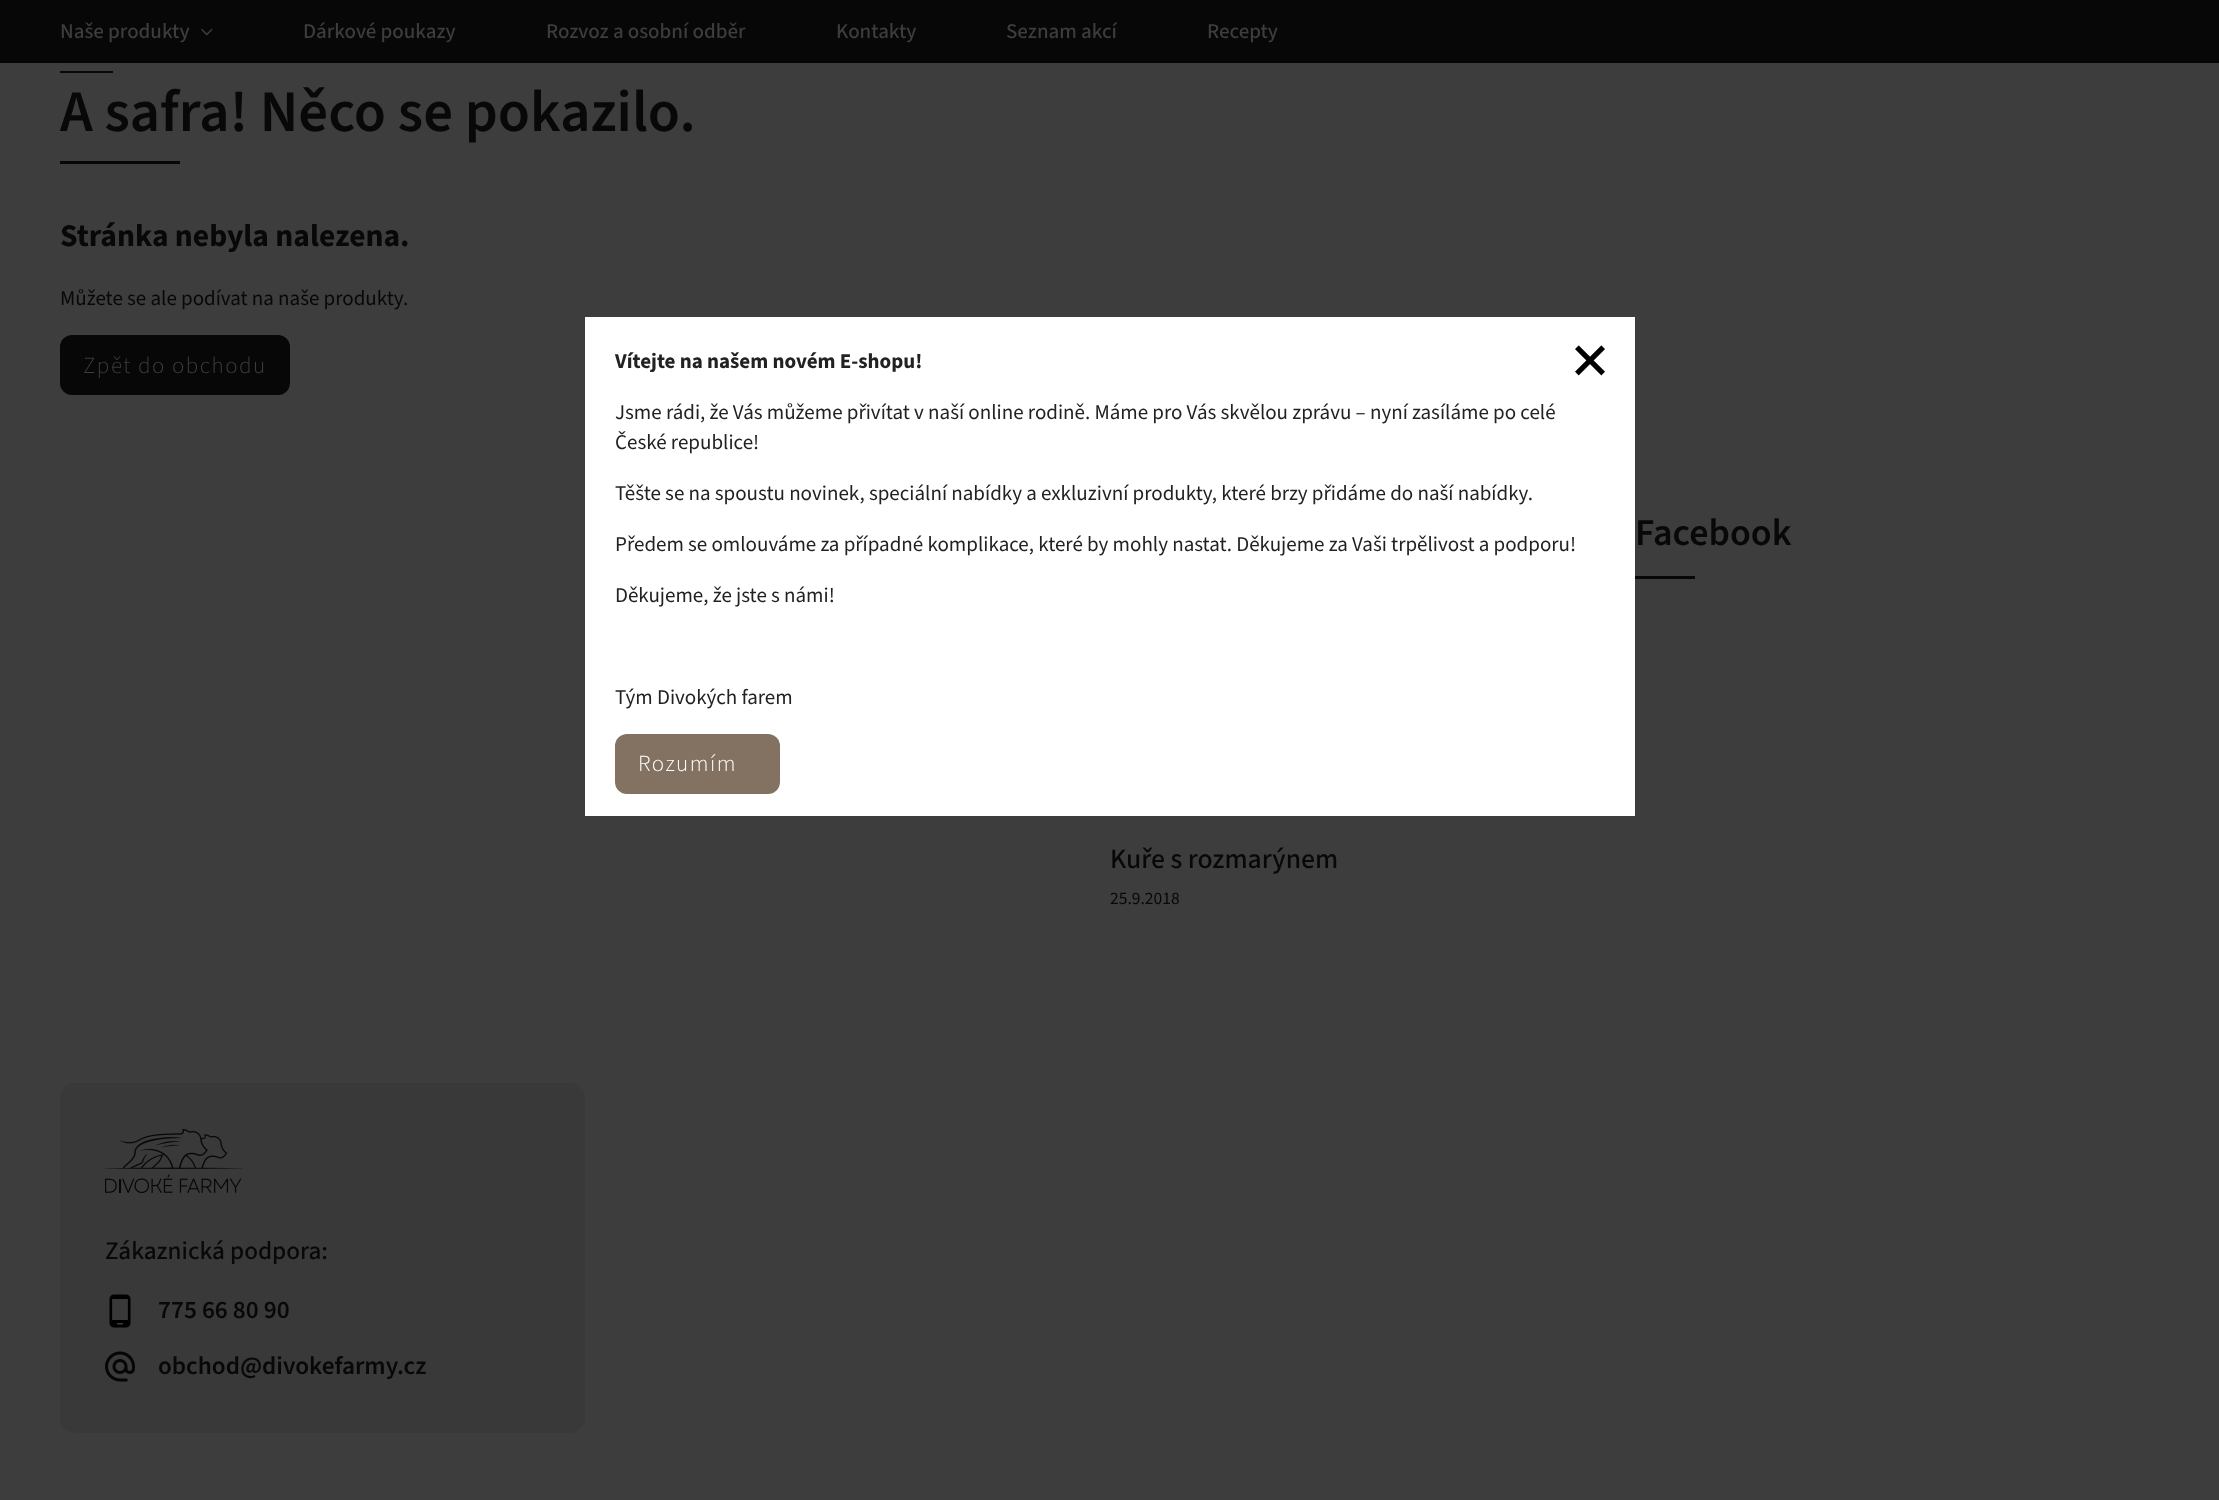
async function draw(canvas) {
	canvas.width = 2219;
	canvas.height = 1500;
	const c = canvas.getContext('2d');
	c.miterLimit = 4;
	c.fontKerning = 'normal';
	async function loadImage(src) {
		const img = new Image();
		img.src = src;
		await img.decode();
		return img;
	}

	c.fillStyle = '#3d3d3d';
	c.fillRect(0, 0, 2219, 1500);
	c.fillStyle = '#070707';
	c.fillRect(0, 0, 2219, 63);
	c.font = '500 21px "Source Sans 3"';
	c.fillStyle = '#3d3d3d';
	c.fillText('Naše produkty', 60, 38);
	c.drawImage(await loadImage('img1.png'), 201, 28, 12, 8);
	for (const [text, x, y] of [
		['Dárkové poukazy', 303, 38],
		['Rozvoz a osobní odběr', 546, 38],
		['Kontakty', 836, 38],
		['Seznam akcí', 1006, 38],
		['Recepty', 1207, 38],
	]) {
		c.fillText(text, x, y);
	}
	c.fillStyle = '#080808';
	c.fillRect(60, 71, 53, 2);
	c.font = '600 58.75px "Source Sans 3"';
	c.fillText('A safra! Něco se pokazilo.', 60, 131);
	c.fillStyle = '#070707';
	c.fillRect(60, 161, 120, 3);
	c.font = 'bold 31.5px "Source Sans 3"';
	c.fillStyle = '#080808';
	c.fillText('Stránka nebyla nalezena.', 60, 246);
	c.font = '21px "Source Sans 3"';
	c.fillText('Můžete se ale podívat na naše produkty.', 60, 305);
	c.fillStyle = '#070707';
	c.beginPath();
	c.roundRect(60, 335, 230, 60, 12);
	c.fill();
	c.letterSpacing = '1.5px';
	c.font = '300 23px "Source Sans 3"';
	c.fillStyle = '#3d3d3d';
	c.fillText('Zpět do obchodu', 83, 373);
	c.letterSpacing = '0px';
	c.font = '600 38px "Source Sans 3"';
	c.fillStyle = '#080808';
	c.fillText('Facebook', 1635, 545);
	c.fillStyle = '#070707';
	c.fillRect(1635, 576, 60, 3);
	c.font = '500 27.75px "Source Sans 3"';
	c.fillStyle = '#080808';
	c.fillText('Kuře s rozmarýnem', 1110, 868);
	c.font = '17.5px "Source Sans 3"';
	c.fillText('25.9.2018', 1110, 904);
	c.fillStyle = '#393939';
	c.beginPath();
	c.roundRect(60, 1083, 525, 350, 15);
	c.fill();
	c.drawImage(await loadImage('img2.png'), 105, 1129, 137, 64);
	c.font = '500 25.25px "Source Sans 3"';
	c.fillStyle = '#080808';
	c.fillText('Zákaznická podpora:', 105, 1259);
	c.drawImage(await loadImage('img3.png'), 109, 1294, 22, 34);
	c.font = '600 25.25px "Source Sans 3"';
	c.fillText('775 66 80 90', 158, 1318);
	c.drawImage(await loadImage('img4.png'), 105, 1351, 30, 31);
	c.fillText('obchod@divokefarmy.cz', 158, 1374);
	c.fillStyle = '#fff';
	c.fillRect(585, 317, 1050, 499);
	c.font = 'bold 21px "Source Sans 3"';
	c.fillStyle = '#222';
	c.fillText('Vítejte na našem novém E-shopu!', 615, 368);
	c.font = '21px "Source Sans 3"';
	for (const [text, x, y] of [
		['Jsme rádi, že Vás můžeme přivítat v naší online rodině. Máme pro Vás skvělou zprávu – nyní zasíláme po celé', 615, 419],
		['České republice!', 615, 449],
		['Těšte se na spoustu novinek, speciální nabídky a exkluzivní produkty, které brzy přidáme do naší nabídky.', 615, 500],
		['Předem se omlouváme za případné komplikace, které by mohly nastat. Děkujeme za Vaši trpělivost a podporu!', 615, 551],
		['Děkujeme, že jste s námi!', 615, 602],
		['Tým Divokých farem', 615, 704],
	]) {
		c.fillText(text, x, y);
	}
	c.fillStyle = '#837261';
	c.beginPath();
	c.roundRect(615, 734, 165, 60, 12);
	c.fill();
	c.letterSpacing = '1.5px';
	c.font = '300 23px "Source Sans 3"';
	c.fillStyle = '#fff';
	c.fillText('Rozumím', 638, 771);
	c.drawImage(await loadImage('img5.png'), 1575, 345, 30, 31);
}

draw(document.querySelector('canvas'));
